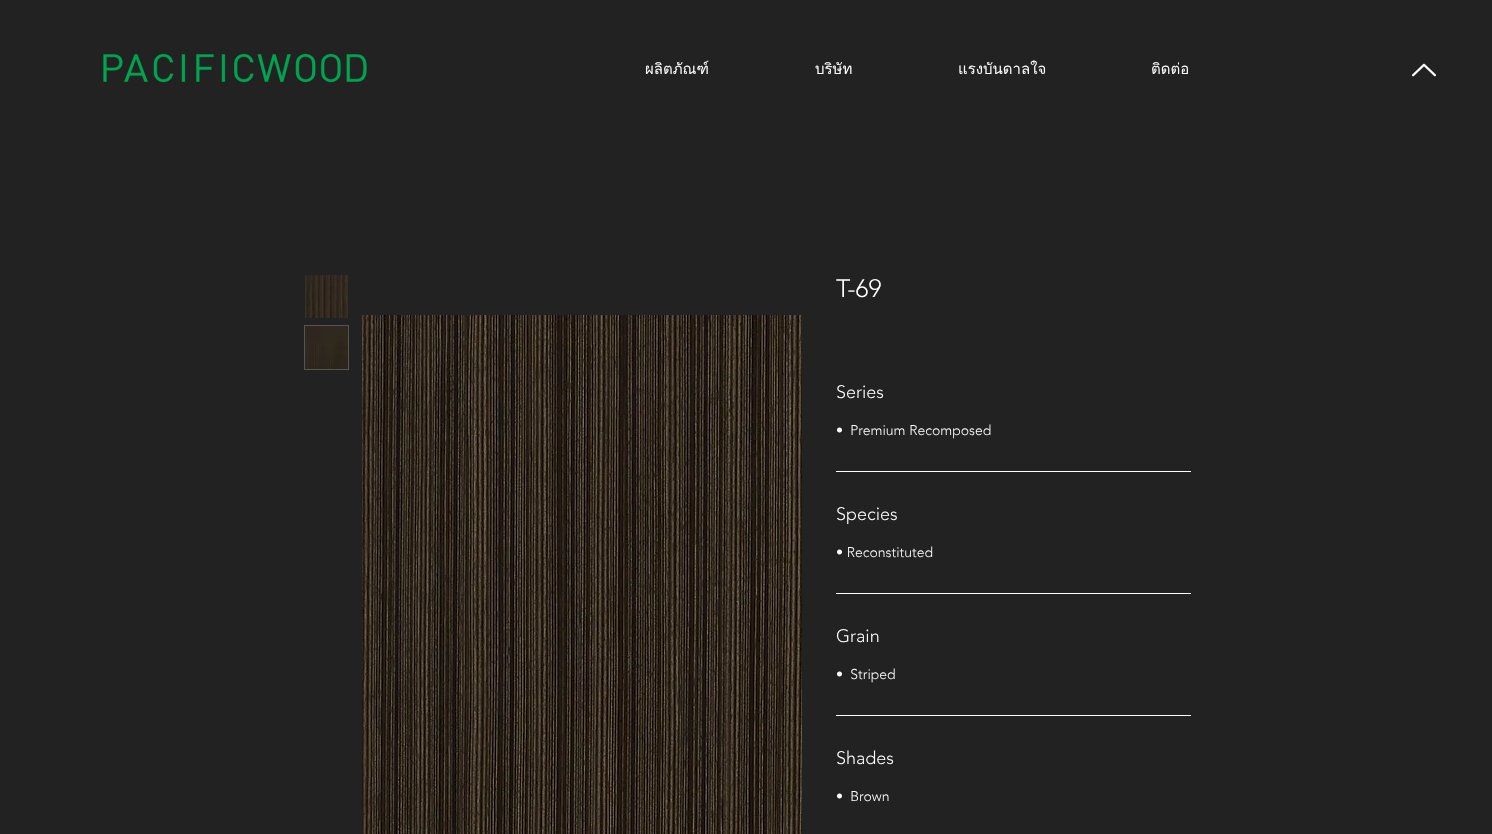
async function draw(canvas) {
	canvas.width = 1492;
	canvas.height = 834;
	const c = canvas.getContext('2d');
	c.miterLimit = 4;
	c.fontKerning = 'normal';
	async function loadImage(src) {
		const img = new Image();
		img.src = src;
		await img.decode();
		return img;
	}

	c.fillStyle = '#222';
	c.fillRect(0, 0, 1492, 834);
	c.drawImage(await loadImage('img1.png'), 103, 53, 264, 30);
	c.font = '15px Loma';
	c.fillStyle = '#fff';
	for (const [text, x, y] of [
		['ผลิตภัณฑ์', 645, 74],
		['บริษัท', 815, 74],
		['แรงบันดาลใจ', 958, 74],
		['ติดต่อ', 1151, 74],
	]) {
		c.fillText(text, x, y);
	}
	c.drawImage(await loadImage('img2.png'), 1412, 63, 24, 14);
	c.drawImage(await loadImage('img3.png'), 305, 275, 43, 43);
	c.strokeStyle = '#555';
	c.strokeRect(304.5, 325.5, 44, 44);
	c.drawImage(await loadImage('img4.png'), 305, 326, 43, 43);
	c.drawImage(await loadImage('img5.png'), 362, 315, 440, 519);
	c.font = '300 25px "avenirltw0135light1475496"';
	c.fillText('T-69', 836, 297);
	c.fillRect(836, 471, 355, 1);
	c.font = '300 18px "avenirltw0135light1475496"';
	c.fillText('Series', 836, 398);
	c.font = '300 14px "avenirltw0135light1475496"';
	c.fillText('•  Premium Recomposed', 836, 435);
	c.fillRect(836, 593, 355, 1);
	c.font = '300 18px "avenirltw0135light1475496"';
	c.fillText('Species', 836, 520);
	c.font = '300 14px "avenirltw0135light1475496"';
	c.fillText('• Reconstituted', 836, 557);
	c.fillRect(836, 715, 355, 1);
	c.font = '300 18px "avenirltw0135light1475496"';
	c.fillText('Grain', 836, 642);
	c.font = '300 14px "avenirltw0135light1475496"';
	c.fillText('•  Striped', 836, 679);
	c.font = '300 18px "avenirltw0135light1475496"';
	c.fillText('Shades', 836, 764);
	c.font = '300 14px "avenirltw0135light1475496"';
	c.fillText('•  Brown', 836, 801);
}

draw(document.querySelector('canvas'));
